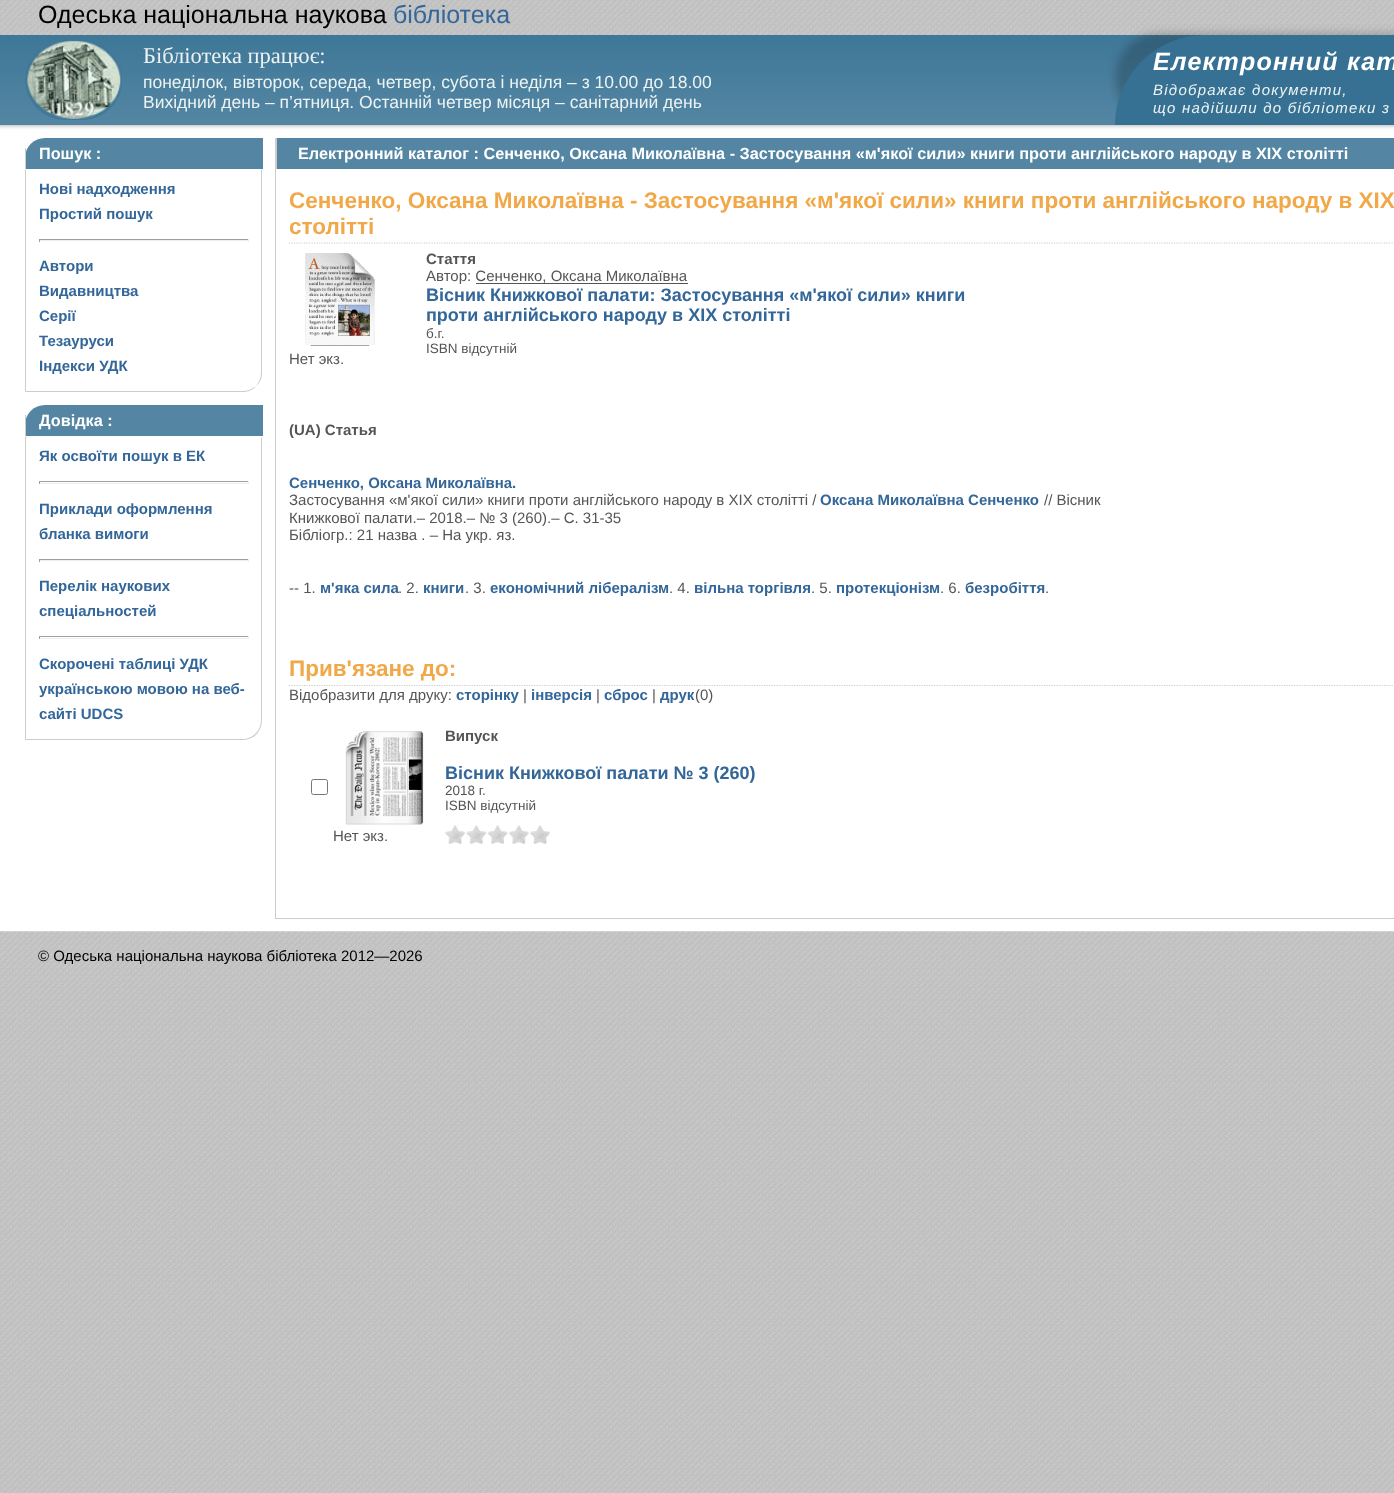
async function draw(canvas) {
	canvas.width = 1394;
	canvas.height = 1493;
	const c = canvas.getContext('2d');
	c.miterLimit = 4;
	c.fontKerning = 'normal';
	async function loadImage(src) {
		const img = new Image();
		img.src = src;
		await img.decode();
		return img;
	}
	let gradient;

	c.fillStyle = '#fff';
	c.fillRect(0, 0, 1394, 1493);
	c.drawImage(await loadImage('img1.png'), 0, 981, 1394, 512);
	c.fillStyle = '#999';
	c.filter = 'blur(2.5px)';
	c.beginPath();
	c.rect(-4, 0, 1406, 125);
	c.fill();
	c.filter = 'none';
	gradient = c.createLinearGradient(750, 0, 750, 125);
	gradient.addColorStop(0, '#367193');
	gradient.addColorStop(1, '#5486a3');
	c.fillStyle = gradient;
	c.fillRect(0, 35, 1204, 90);
	c.drawImage(await loadImage('img2.png'), 0, 0, 1394, 35);
	c.font = '25px Liberation Sans';
	c.fillStyle = '#000';
	c.fillText('Одеська національна наукова', 38, 23);
	c.fillStyle = '#369';
	c.fillText('бібліотека', 393, 23);
	c.drawImage(await loadImage('img3.png'), 25, 40, 97, 80);
	c.font = '22.5px Liberation Serif';
	c.fillStyle = '#edf3f3';
	c.fillText('Бібліотека працює:', 143, 63);
	c.font = '17.5px Liberation Sans';
	c.fillText('понеділок, вівторок, середа, четвер, субота і неділя – з 10.00 до 18.00', 143, 88);
	c.fillText('Вихідний день – п’ятниця. Останній четвер місяця – санітарний день', 143, 108);
	c.save();
	c.beginPath();
	c.rect(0, 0, 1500, 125);
	c.clip();
	c.fillStyle = '#00000033';
	c.filter = 'blur(4px)';
	c.beginPath();
	c.roundRect(1115, 33, 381, 90, 90);
	c.fill();
	c.filter = 'none';
	c.restore();
	c.fillStyle = '#367193';
	c.beginPath();
	c.moveTo(1205, 35);
	c.lineTo(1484, 35);
	c.lineTo(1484, 125);
	c.lineTo(1115, 125);
	c.bezierCurveTo(1115, 75.5, 1155.5, 35, 1205, 35);
	c.closePath();
	c.fill();
	c.letterSpacing = '1.25px';
	c.font = 'italic bold 25px Liberation Sans';
	c.fillStyle = '#fff';
	c.fillText('Електронний кат', 1153, 70);
	c.font = 'italic 15px Liberation Sans';
	c.fillStyle = '#edf3f3';
	c.fillText('Відображає документи,', 1153, 95);
	c.fillText('що надійшли до бібліотеки з', 1153, 113);
	c.fillStyle = '#5486a3';
	c.beginPath();
	c.roundRect(25, 138, 238, 31, [20, 0, 0, 0]);
	c.fill();
	c.fillStyle = '#ccc';
	c.fillRect(25, 148, 1, 21);
	c.letterSpacing = '0px';
	c.font = 'bold 16.25px Liberation Sans';
	c.fillStyle = '#fff';
	c.fillText('Пошук :', 39, 159);
	c.fillStyle = '#ccc';
	c.beginPath();
	c.moveTo(262, 169);
	c.lineTo(262, 372);
	c.bezierCurveTo(262, 378, 260, 383, 256, 386);
	c.bezierCurveTo(259, 382, 261, 378, 261, 372);
	c.lineTo(261, 170);
	c.closePath();
	c.fill();
	c.beginPath();
	c.moveTo(256, 386);
	c.bezierCurveTo(253, 390, 248, 392, 242, 392);
	c.lineTo(26, 392);
	c.lineTo(26, 391);
	c.lineTo(242, 391);
	c.bezierCurveTo(248, 391, 252, 389, 256, 386);
	c.closePath();
	c.fill();
	c.beginPath();
	c.moveTo(26, 170);
	c.lineTo(26, 391);
	c.lineTo(25, 392);
	c.lineTo(25, 169);
	c.closePath();
	c.fill();
	c.font = 'bold 15px Liberation Sans';
	c.fillStyle = '#369';
	c.fillText('Нові надходження', 39, 194);
	c.fillText('Простий пошук', 39, 219);
	for (const [x, y, w, h, color] of [
		[39, 239, 210, 1, '#9f9f9f'],
		[248, 239, 1, 3, '#eee'],
		[39, 240, 210, 1, '#eee'],
		[39, 239, 1, 3, '#9f9f9f'],
	]) {
		c.fillStyle = color;
		c.fillRect(x, y, w, h);
	}
	c.fillStyle = '#369';
	for (const [text, x, y] of [
		['Автори', 39, 271],
		['Видавництва', 39, 296],
		['Серії', 39, 321],
		['Тезауруси', 39, 346],
		['Індекси УДК', 39, 371],
	]) {
		c.fillText(text, x, y);
	}
	c.fillStyle = '#5486a3';
	c.beginPath();
	c.roundRect(25, 405, 238, 31, [20, 0, 0, 0]);
	c.fill();
	c.fillStyle = '#ccc';
	c.fillRect(25, 415, 1, 21);
	c.font = 'bold 16.25px Liberation Sans';
	c.fillStyle = '#fff';
	c.fillText('Довідка :', 39, 426);
	c.fillStyle = '#ccc';
	c.beginPath();
	c.moveTo(262, 437);
	c.lineTo(262, 720);
	c.bezierCurveTo(262, 725, 260, 730, 257, 734);
	c.lineTo(256, 733);
	c.bezierCurveTo(259, 730, 261, 725, 261, 720);
	c.lineTo(261, 438);
	c.closePath();
	c.fill();
	c.beginPath();
	c.moveTo(242, 740);
	c.bezierCurveTo(248, 740, 253, 738, 257, 734);
	c.lineTo(256, 733);
	c.bezierCurveTo(252, 737, 248, 739, 242, 739);
	c.lineTo(26, 739);
	c.lineTo(25, 740);
	c.closePath();
	c.fill();
	c.beginPath();
	c.moveTo(26, 438);
	c.lineTo(27, 438);
	c.lineTo(25, 436);
	c.lineTo(25, 740);
	c.lineTo(26, 739);
	c.closePath();
	c.fill();
	c.font = 'bold 15px Liberation Sans';
	c.fillStyle = '#369';
	c.fillText('Як освоїти пошук в ЕК', 39, 461);
	for (const [x, y, w, h, color] of [
		[39, 481, 210, 1, '#9f9f9f'],
		[248, 481, 1, 3, '#eee'],
		[39, 483, 210, 1, '#eee'],
		[39, 481, 1, 3, '#9f9f9f'],
	]) {
		c.fillStyle = color;
		c.fillRect(x, y, w, h);
	}
	c.fillStyle = '#369';
	c.fillText('Приклади оформлення', 39, 514);
	c.fillText('бланка вимоги', 39, 539);
	for (const [x, y, w, h, color] of [
		[39, 559, 210, 1, '#9f9f9f'],
		[248, 559, 1, 3, '#eee'],
		[39, 560, 210, 1, '#eee'],
		[39, 559, 1, 3, '#9f9f9f'],
	]) {
		c.fillStyle = color;
		c.fillRect(x, y, w, h);
	}
	c.fillStyle = '#369';
	c.fillText('Перелік наукових', 39, 591);
	c.fillText('спеціальностей', 39, 616);
	for (const [x, y, w, h, color] of [
		[39, 636, 210, 1, '#9f9f9f'],
		[248, 636, 1, 3, '#eee'],
		[39, 638, 210, 1, '#eee'],
		[39, 636, 1, 3, '#9f9f9f'],
	]) {
		c.fillStyle = color;
		c.fillRect(x, y, w, h);
	}
	c.fillStyle = '#369';
	for (const [text, x, y] of [
		['Скорочені таблиці УДК', 39, 669],
		['українською мовою на веб-', 39, 694],
		['сайті UDCS', 39, 719],
	]) {
		c.fillText(text, x, y);
	}
	for (const [x, y, w, h, color] of [
		[275, 918, 1119, 1, '#ccc'],
		[275, 138, 1, 781, '#ccc'],
		[277, 138, 1117, 31, '#5486a3'],
		[276, 138, 1, 31, '#ccc'],
	]) {
		c.fillStyle = color;
		c.fillRect(x, y, w, h);
	}
	c.font = 'bold 16.25px Liberation Sans';
	c.fillStyle = '#fff';
	c.fillText('Електронний каталог : Сенченко, Оксана Миколаївна - Застосування «м\'якої сили» книги проти англійського народу в XIX столітті', 298, 159);
	c.beginPath();
	c.moveTo(289, 243);
	c.lineTo(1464, 243);
	c.strokeStyle = '#ccc';
	c.lineWidth = 1.2;
	c.setLineDash([1.25, 1.25]);
	c.stroke();
	c.font = 'bold 22.5px Liberation Sans';
	c.fillStyle = '#f0a848';
	c.fillText('Сенченко, Оксана Миколаївна - Застосування «м\'якої сили» книги проти англійського народу в XIX', 289, 208);
	c.fillText('столітті', 289, 234);
	c.font = 'bold 15px Liberation Sans';
	c.fillStyle = '#555';
	c.fillText('Стаття', 426, 264);
	c.font = '15px Liberation Sans';
	c.fillText('Автор: Сенченко, Оксана Миколаївна', 426, 281);
	c.fillRect(476, 283, 212, 1);
	c.font = 'bold 18px Liberation Sans';
	c.fillStyle = '#369';
	c.fillText('Вісник Книжкової палати: Застосування «м\'якої сили» книги', 426, 301);
	c.fillText('проти англійського народу в XIX столітті', 426, 321);
	c.font = '13.5px Liberation Sans';
	c.fillStyle = '#555';
	c.fillText('б.г.', 426, 338);
	c.fillText('ISBN відсутній', 426, 353);
	c.drawImage(await loadImage('img4.png'), 305, 253, 70, 93);
	c.font = '15px Liberation Sans';
	c.fillText('Нет экз.', 289, 364);
	c.font = 'bold 15px Liberation Sans';
	c.fillText('(UA) Статья', 289, 435);
	c.fillStyle = '#369';
	c.fillText('Сенченко, Оксана Миколаївна.', 289, 488);
	c.font = '15px Liberation Sans';
	c.fillStyle = '#555';
	c.fillText('Застосування «м\'якої сили» книги проти англійського народу в XIX столітті /', 289, 505);
	c.font = 'bold 15px Liberation Sans';
	c.fillStyle = '#369';
	c.fillText('Оксана Миколаївна Сенченко', 820, 505);
	c.font = '15px Liberation Sans';
	c.fillStyle = '#555';
	for (const [text, x, y] of [
		['// Вісник', 1044, 505],
		['Книжкової палати.– 2018.– № 3 (260).– С. 31-35', 289, 523],
		['Бібліогр.: 21 назва . – На укр. яз.', 289, 540],
		['-- 1.', 289, 593],
	]) {
		c.fillText(text, x, y);
	}
	c.font = 'bold 15px Liberation Sans';
	c.fillStyle = '#369';
	c.fillText('м\'яка сила', 320, 593);
	c.font = '15px Liberation Sans';
	c.fillStyle = '#555';
	c.fillText('. 2.', 398, 593);
	c.font = 'bold 15px Liberation Sans';
	c.fillStyle = '#369';
	c.fillText('книги', 423, 593);
	c.font = '15px Liberation Sans';
	c.fillStyle = '#555';
	c.fillText('. 3.', 465, 593);
	c.font = 'bold 15px Liberation Sans';
	c.fillStyle = '#369';
	c.fillText('економічний лібералізм', 490, 593);
	c.font = '15px Liberation Sans';
	c.fillStyle = '#555';
	c.fillText('. 4.', 669, 593);
	c.font = 'bold 15px Liberation Sans';
	c.fillStyle = '#369';
	c.fillText('вільна торгівля', 694, 593);
	c.font = '15px Liberation Sans';
	c.fillStyle = '#555';
	c.fillText('. 5.', 811, 593);
	c.font = 'bold 15px Liberation Sans';
	c.fillStyle = '#369';
	c.fillText('протекціонізм', 836, 593);
	c.font = '15px Liberation Sans';
	c.fillStyle = '#555';
	c.fillText('. 6.', 940, 593);
	c.font = 'bold 15px Liberation Sans';
	c.fillStyle = '#369';
	c.fillText('безробіття', 965, 593);
	c.font = '15px Liberation Sans';
	c.fillStyle = '#555';
	c.fillText('.', 1045, 593);
	c.beginPath();
	c.moveTo(289, 685.5);
	c.lineTo(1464, 685.5);
	c.stroke();
	c.font = 'bold 22.5px Liberation Sans';
	c.fillStyle = '#f0a848';
	c.fillText('Прив\'язане до:', 289, 676);
	c.font = '15px Liberation Sans';
	c.fillStyle = '#555';
	c.fillText('Відобразити для друку:', 289, 700);
	c.font = 'bold 15px Liberation Sans';
	c.fillStyle = '#369';
	c.fillText('сторінку', 456, 700);
	c.font = '15px Liberation Sans';
	c.fillStyle = '#555';
	c.fillText('|', 523, 700);
	c.font = 'bold 15px Liberation Sans';
	c.fillStyle = '#369';
	c.fillText('інверсія', 531, 700);
	c.font = '15px Liberation Sans';
	c.fillStyle = '#555';
	c.fillText('|', 596, 700);
	c.font = 'bold 15px Liberation Sans';
	c.fillStyle = '#369';
	c.fillText('сброс', 604, 700);
	c.font = '15px Liberation Sans';
	c.fillStyle = '#555';
	c.fillText('|', 652, 700);
	c.font = 'bold 15px Liberation Sans';
	c.fillStyle = '#369';
	c.fillText('друк', 660, 700);
	c.font = '15px Liberation Sans';
	c.fillStyle = '#555';
	c.fillText('(0)', 695, 700);
	c.font = 'bold 15px Liberation Sans';
	c.fillText('Випуск', 445, 741);
	c.font = 'bold 18px Liberation Sans';
	c.fillStyle = '#369';
	c.fillText('Вісник Книжкової палати № 3 (260)', 445, 779);
	c.font = '13.5px Liberation Sans';
	c.fillStyle = '#555';
	c.fillText('2018 г.', 445, 795);
	c.fillText('ISBN відсутній', 445, 810);
	c.drawImage(await loadImage('img5.png'), 445, 825, 20, 19);
	c.drawImage(await loadImage('img6.png'), 466, 825, 21, 19);
	c.drawImage(await loadImage('img7.png'), 487, 825, 21, 19);
	c.drawImage(await loadImage('img8.png'), 509, 825, 20, 19);
	c.drawImage(await loadImage('img5.png'), 530, 825, 20, 19);
	c.beginPath();
	c.roundRect(311.5, 779.5, 16, 15, 2);
	c.strokeStyle = '#767676';
	c.lineWidth = 1;
	c.setLineDash([]);
	c.stroke();
	c.drawImage(await loadImage('img9.png'), 345, 731, 79, 94);
	c.font = '15px Liberation Sans';
	c.fillText('Нет экз.', 333, 841);
	c.drawImage(await loadImage('img10.png'), 0, 931, 1394, 50);
	c.fillStyle = '#000';
	c.fillText('© Одеська національна наукова бібліотека 2012—2026', 38, 961);
}

draw(document.querySelector('canvas'));
